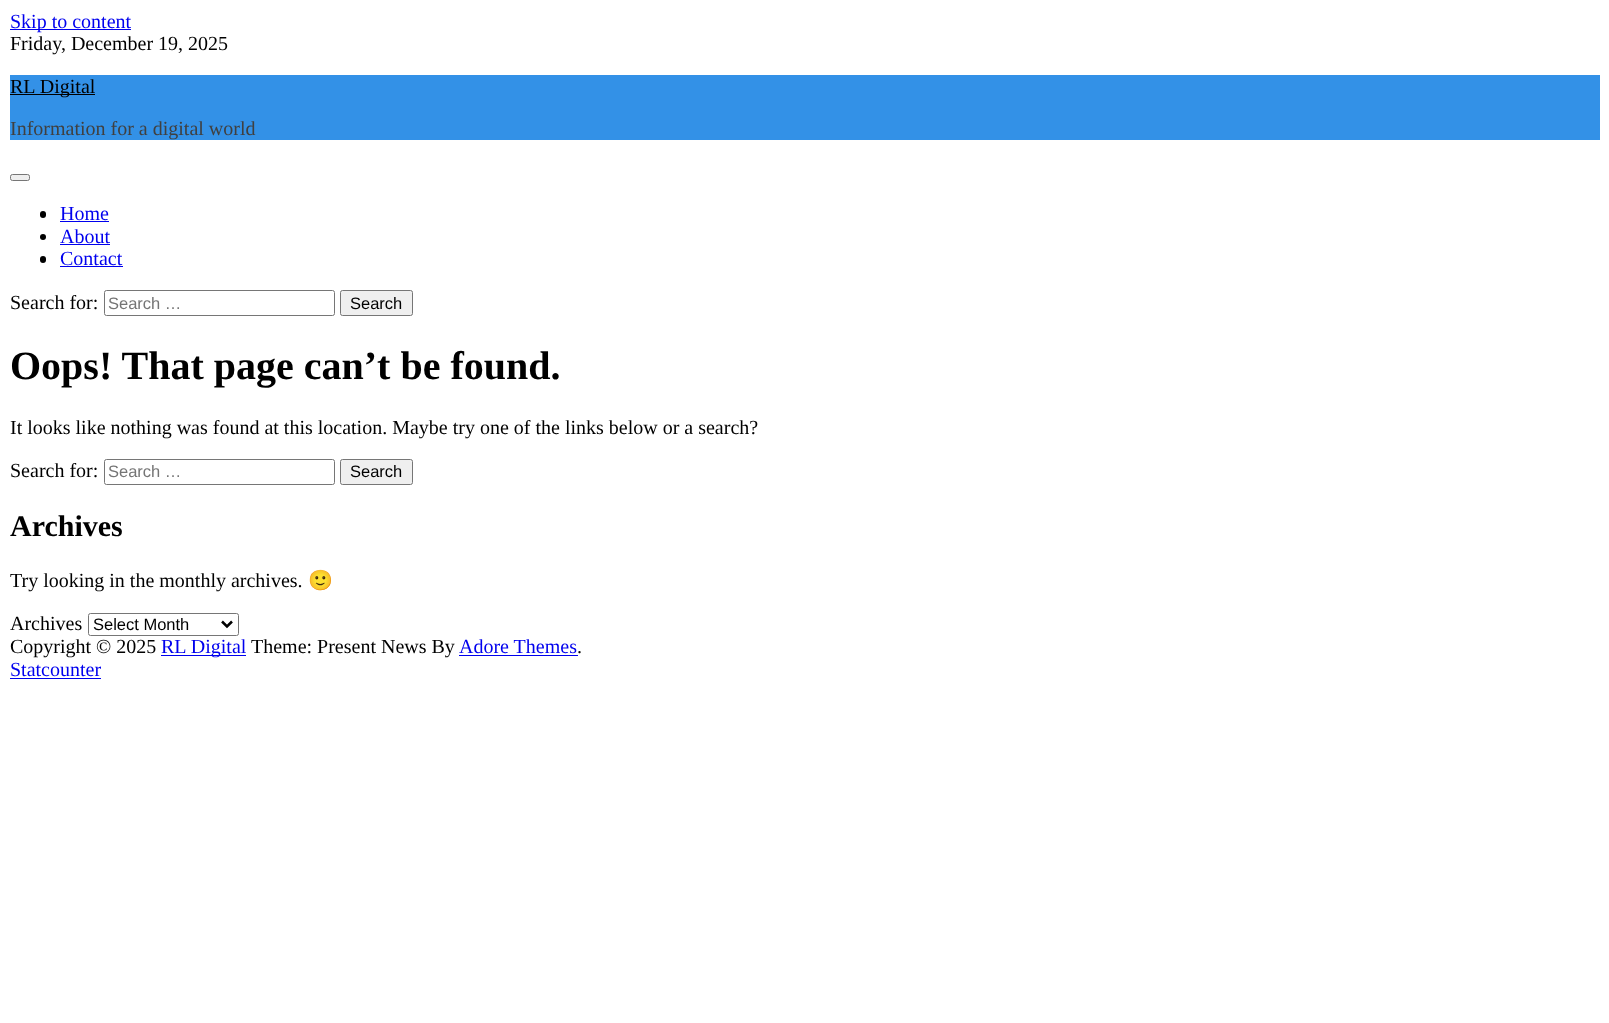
async function draw(canvas) {
	canvas.width = 1609;
	canvas.height = 1023;
	const c = canvas.getContext('2d');
	c.miterLimit = 4;
	c.fontKerning = 'normal';

	c.fillStyle = '#fff';
	c.fillRect(0, 0, 1609, 1023);
	c.fillStyle = '#00e';
	c.fillRect(10, 29, 121, 1);
	c.font = '20px Liberation Serif';
	c.fillText('Skip to content', 10, 28);
	c.fillStyle = '#000';
	c.fillText('Friday, December 19, 2025', 10, 50);
	c.fillStyle = '#3391e7';
	c.fillRect(10, 75, 1590, 65);
	c.fillStyle = '#000';
	c.fillRect(10, 94, 85, 1);
	c.fillText('RL Digital', 10, 93);
	c.fillStyle = '#404040';
	c.fillText('Information for a digital world', 10, 135);
	c.fillStyle = '#efefef';
	c.beginPath();
	c.roundRect(10.5, 174.5, 19, 6, 2);
	c.fill();
	c.strokeStyle = '#767676';
	c.stroke();
	c.fillStyle = '#000';
	c.beginPath();
	c.roundRect(40, 211, 6, 7, 3);
	c.fill();
	c.fillStyle = '#00e';
	c.fillText('Home', 60, 220);
	c.fillRect(60, 221, 49, 1);
	c.fillStyle = '#000';
	c.beginPath();
	c.arc(43, 237, 3, 0, 2 * Math.PI);
	c.fill();
	c.fillStyle = '#00e';
	c.fillText('About', 60, 243);
	c.fillRect(60, 244, 50, 1);
	c.fillStyle = '#000';
	c.beginPath();
	c.roundRect(40, 256, 6, 7, 3);
	c.fill();
	c.fillStyle = '#00e';
	c.fillText('Contact', 60, 265);
	c.fillRect(60, 266, 63, 1);
	c.fillStyle = '#000';
	c.fillText('Search for:', 10, 309);
	c.beginPath();
	c.roundRect(104.5, 290.5, 230, 25, 2);
	c.stroke();
	c.font = '16.5px Liberation Sans';
	c.fillStyle = '#757575';
	c.fillText('Search …', 108, 309);
	c.fillStyle = '#efefef';
	c.beginPath();
	c.roundRect(340.5, 290.5, 72, 25, 2);
	c.fill();
	c.stroke();
	c.fillStyle = '#000';
	c.fillText('Search', 350, 309);
	c.font = 'bold 40px Liberation Serif';
	c.fillText('Oops! That page can’t be found.', 10, 379);
	c.font = '20px Liberation Serif';
	c.fillText('It looks like nothing was found at this location. Maybe try one of the links below or a search?', 10, 434);
	c.fillText('Search for:', 10, 477);
	c.beginPath();
	c.roundRect(104.5, 459.5, 230, 25, 2);
	c.stroke();
	c.font = '16.5px Liberation Sans';
	c.fillStyle = '#757575';
	c.fillText('Search …', 108, 477);
	c.fillStyle = '#efefef';
	c.beginPath();
	c.roundRect(340.5, 459.5, 72, 25, 2);
	c.fill();
	c.stroke();
	c.fillStyle = '#000';
	c.fillText('Search', 350, 477);
	c.font = 'bold 30px Liberation Serif';
	c.fillText('Archives', 10, 536);
	c.font = '20px Liberation Serif';
	c.fillText('Try looking in the monthly archives.', 10, 587);
	c.font = '20px Noto Color Emoji';
	c.fillText('🙂', 308, 587);
	c.font = '20px Liberation Serif';
	c.fillText('Archives', 10, 630);
	c.beginPath();
	c.roundRect(88.5, 613.5, 150, 22, 2);
	c.stroke();
	c.beginPath();
	c.moveTo(222, 621.5);
	c.lineTo(227, 626.5);
	c.lineTo(232, 621.5);
	c.strokeStyle = '#000';
	c.lineWidth = 2.5;
	c.stroke();
	c.font = '16.5px Liberation Sans';
	c.fillText('Select Month', 93, 630);
	c.font = '20px Liberation Serif';
	c.fillText('Copyright © 2025', 10, 653);
	c.fillStyle = '#00e';
	c.fillRect(161, 655, 85, 1);
	c.fillText('RL Digital', 161, 653);
	c.fillStyle = '#000';
	c.fillText('Theme: Present News By', 251, 653);
	c.fillStyle = '#00e';
	c.fillText('Adore Themes', 459, 653);
	c.fillStyle = '#000';
	c.fillText('.', 577, 653);
	c.fillStyle = '#00e';
	c.fillRect(459, 655, 119, 1);
	c.fillText('Statcounter', 10, 676);
	c.fillRect(10, 678, 91, 1);
}

draw(document.querySelector('canvas'));
